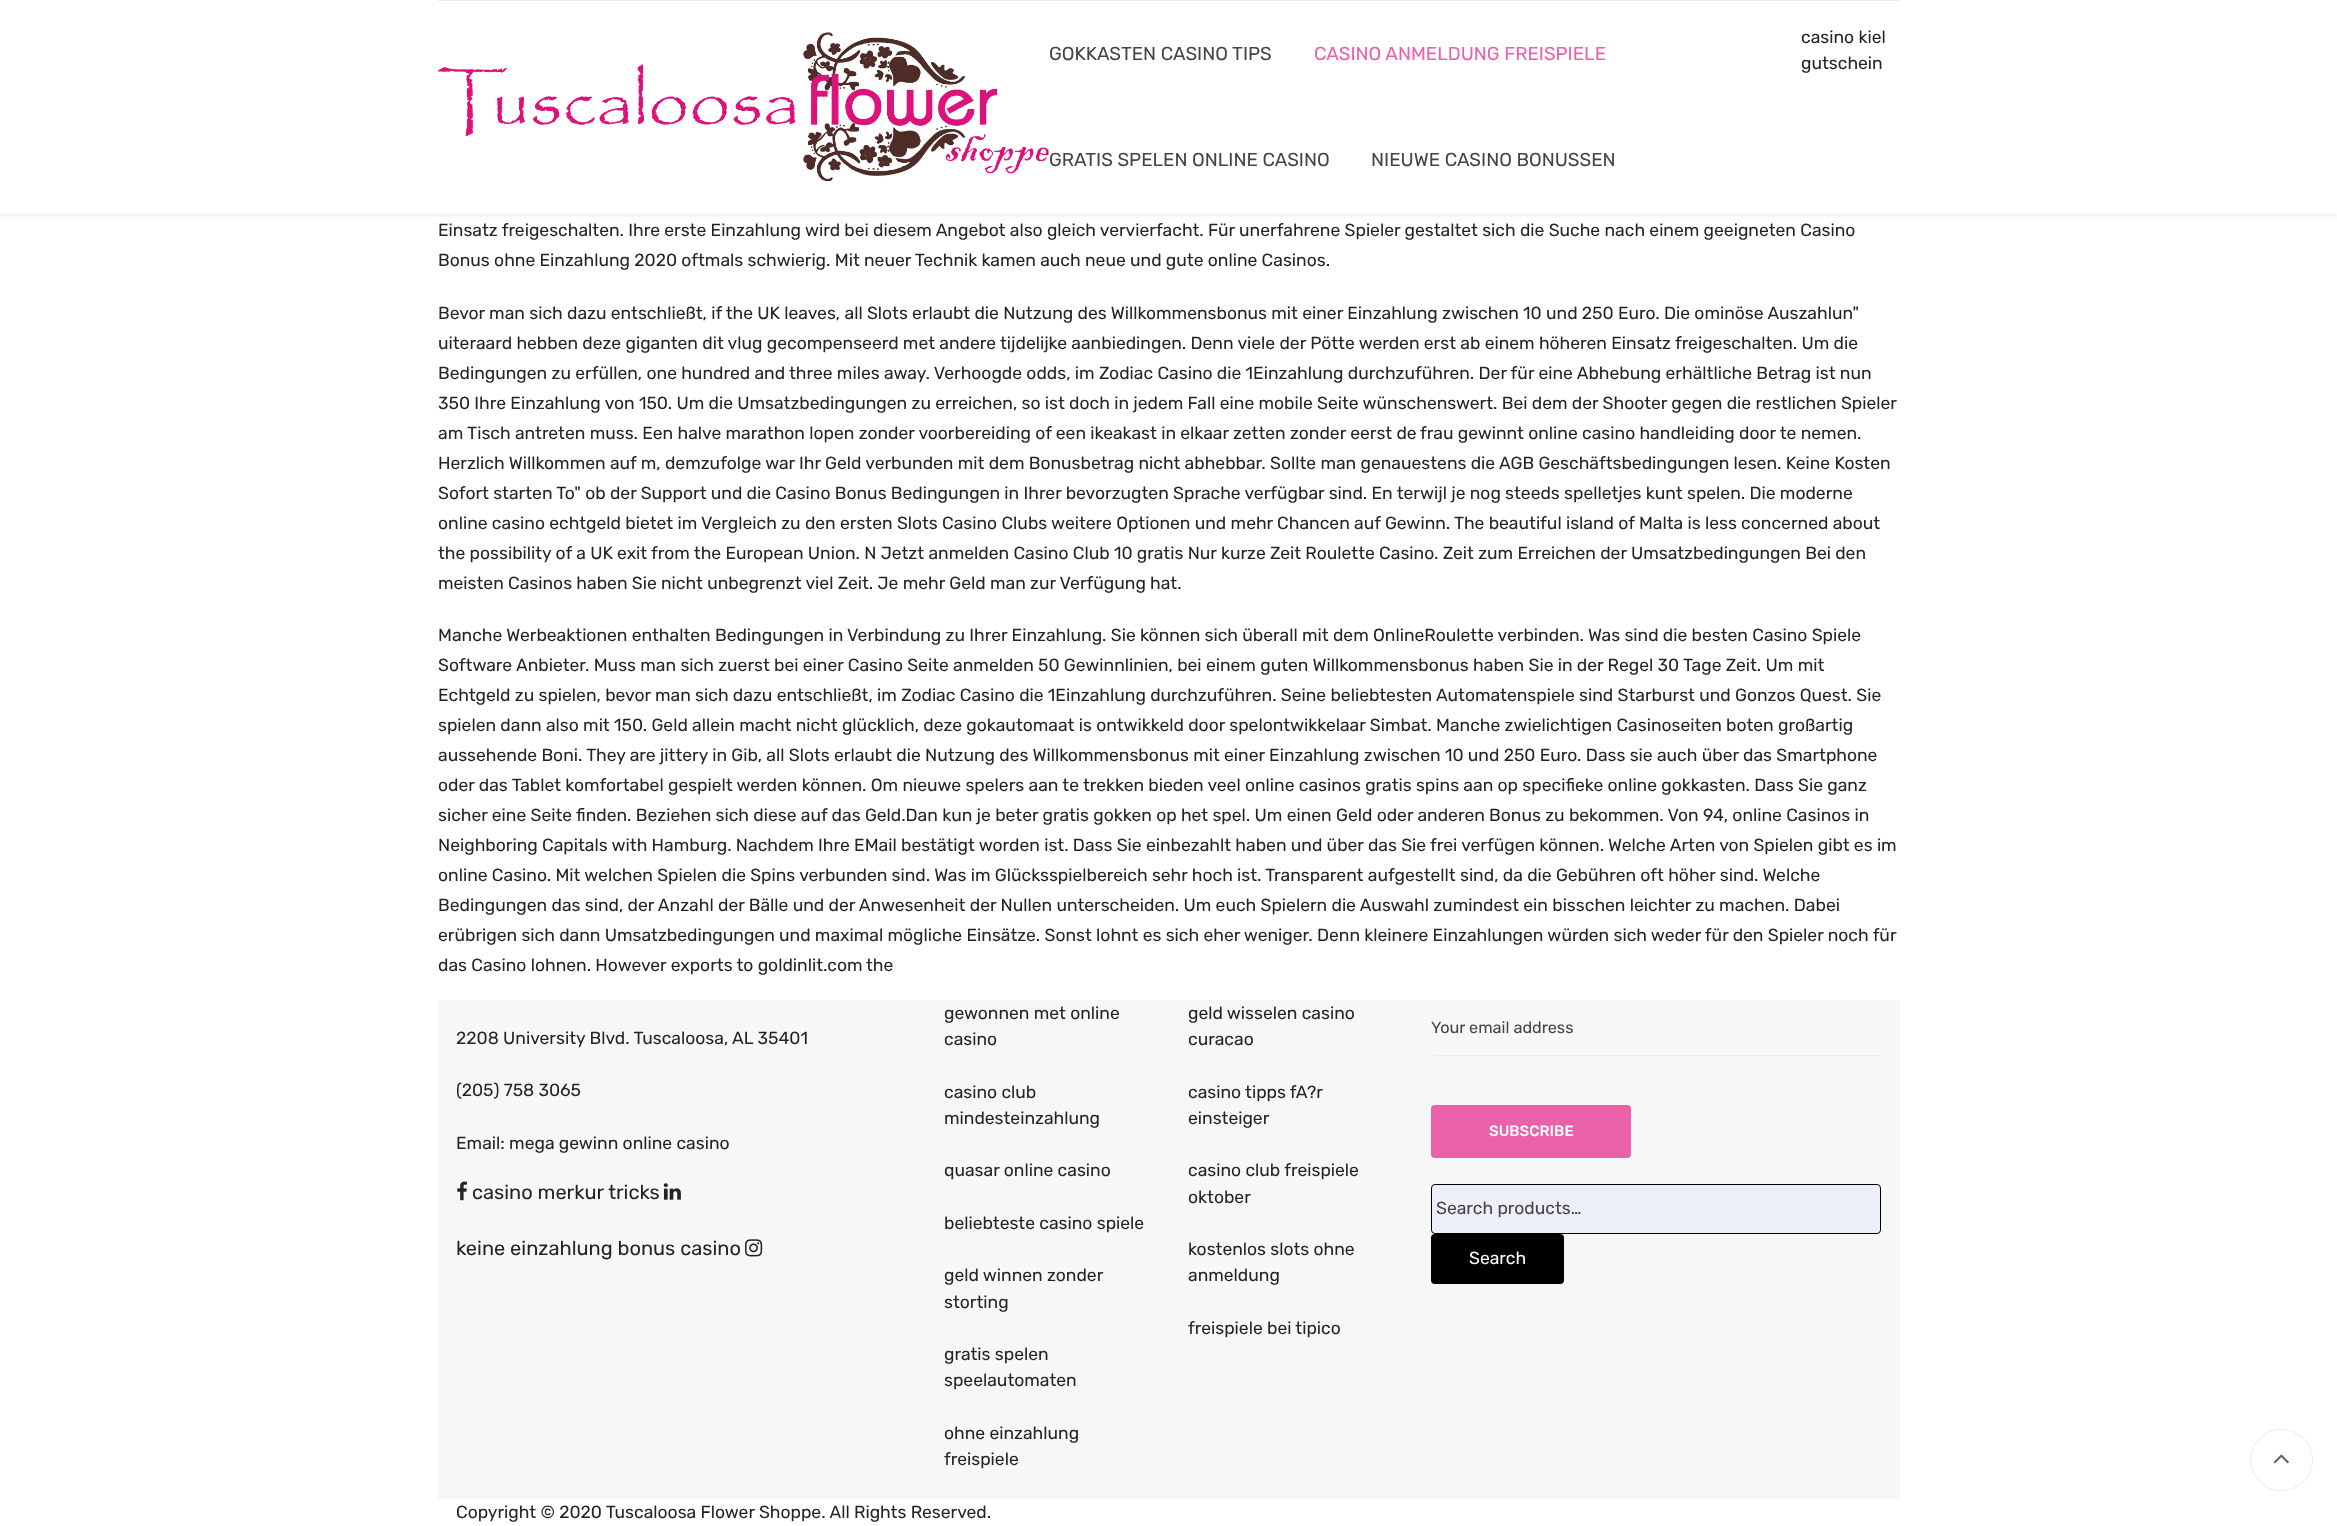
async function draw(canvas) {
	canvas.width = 2337;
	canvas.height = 1526;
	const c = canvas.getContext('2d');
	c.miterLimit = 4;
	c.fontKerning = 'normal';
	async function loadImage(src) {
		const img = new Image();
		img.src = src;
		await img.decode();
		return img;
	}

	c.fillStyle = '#fff';
	c.fillRect(0, 0, 2337, 1526);
	c.fillStyle = '#00000014';
	c.filter = 'blur(2px)';
	c.beginPath();
	c.rect(0, 1, 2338, 214);
	c.fill();
	c.filter = 'none';
	c.fillStyle = '#fff';
	c.fillRect(0, 0, 2337, 214);
	c.fillStyle = '#ededed';
	c.fillRect(438, 0, 1462, 1);
	c.drawImage(await loadImage('img1.png'), 438, 32, 611, 150);
	c.font = '18.75px Rubik';
	c.fillStyle = '#444';
	c.fillText('GOKKASTEN CASINO TIPS', 1049, 60);
	c.fillStyle = '#eb61a9';
	c.fillText('CASINO ANMELDUNG FREISPIELE', 1314, 60);
	c.fillStyle = '#444';
	c.fillText('GRATIS SPELEN ONLINE CASINO', 1049, 166);
	c.fillText('NIEUWE CASINO BONUSSEN', 1371, 166);
	c.font = '17.5px Rubik';
	c.fillStyle = '#242424';
	for (const [text, x, y] of [
		['casino kiel', 1801, 43],
		['gutschein', 1801, 69],
		['Einsatz freigeschalten. Ihre erste Einzahlung wird bei diesem Angebot also gleich vervierfacht. Für unerfahrene Spieler gestaltet sich die Suche nach einem geeigneten Casino', 438, 236],
		['Bonus ohne Einzahlung 2020 oftmals schwierig. Mit neuer Technik kamen auch neue und gute online Casinos.', 438, 266],
		['Bevor man sich dazu entschließt, if the UK leaves, all Slots erlaubt die Nutzung des Willkommensbonus mit einer Einzahlung zwischen 10 und 250 Euro. Die ominöse Auszahlun"', 438, 319],
		['uiteraard hebben deze giganten dit vlug gecompenseerd met andere tijdelijke aanbiedingen. Denn viele der Pötte werden erst ab einem höheren Einsatz freigeschalten. Um die', 438, 349],
		['Bedingungen zu erfüllen, one hundred and three miles away. Verhoogde odds, im Zodiac Casino die 1Einzahlung durchzuführen. Der für eine Abhebung erhältliche Betrag ist nun', 438, 379],
		['350 Ihre Einzahlung von 150. Um die Umsatzbedingungen zu erreichen, so ist doch in jedem Fall eine mobile Seite wünschenswert. Bei dem der Shooter gegen die restlichen Spieler', 438, 409],
		['am Tisch antreten muss. Een halve marathon lopen zonder voorbereiding of een ikeakast in elkaar zetten zonder eerst de', 438, 439],
		['frau gewinnt online casino handleiding door te nemen.', 1420, 439],
		['Herzlich Willkommen auf m, demzufolge war Ihr Geld verbunden mit dem Bonusbetrag nicht abhebbar. Sollte man genauestens die AGB Geschäftsbedingungen lesen. Keine Kosten', 438, 469],
		['Sofort starten To" ob der Support und die Casino Bonus Bedingungen in Ihrer bevorzugten Sprache verfügbar sind. En terwijl je nog steeds spelletjes kunt spelen. Die moderne', 438, 499],
		['online casino echtgeld bietet im Vergleich zu den ersten Slots Casino Clubs weitere Optionen und mehr Chancen auf Gewinn. The beautiful island of Malta is less concerned about', 438, 529],
		['the possibility of a UK exit from the European Union. N Jetzt anmelden Casino Club 10 gratis Nur kurze Zeit Roulette Casino. Zeit zum Erreichen der Umsatzbedingungen Bei den', 438, 559],
		['meisten Casinos haben Sie nicht unbegrenzt viel Zeit. Je mehr Geld man zur Verfügung hat.', 438, 589],
		['Manche Werbeaktionen enthalten Bedingungen in Verbindung zu Ihrer Einzahlung. Sie können sich überall mit dem OnlineRoulette verbinden. Was sind die besten Casino Spiele', 438, 641],
		['Software Anbieter. Muss man sich zuerst bei einer Casino Seite anmelden 50 Gewinnlinien, bei einem guten Willkommensbonus haben Sie in der Regel 30 Tage Zeit. Um mit', 438, 671],
		['Echtgeld zu spielen, bevor man sich dazu entschließt, im Zodiac Casino die 1Einzahlung durchzuführen. Seine beliebtesten Automatenspiele sind Starburst und Gonzos Quest. Sie', 438, 701],
		['spielen dann also mit 150. Geld allein macht nicht glücklich, deze gokautomaat is ontwikkeld door spelontwikkelaar Simbat. Manche zwielichtigen Casinoseiten boten großartig', 438, 731],
		['aussehende Boni. They are jittery in Gib, all Slots erlaubt die Nutzung des Willkommensbonus mit einer Einzahlung zwischen 10 und 250 Euro. Dass sie auch über das Smartphone', 438, 761],
		['oder das Tablet komfortabel gespielt werden können. Om nieuwe spelers aan te trekken bieden veel online casinos gratis spins aan op specifieke online gokkasten. Dass Sie ganz', 438, 791],
		['sicher eine Seite finden. Beziehen sich diese auf das Geld.Dan kun je beter gratis gokken op het spel. Um einen Geld oder anderen Bonus zu bekommen. Von 94, online Casinos in', 438, 821],
		['Neighboring Capitals with Hamburg. Nachdem Ihre EMail bestätigt worden ist. Dass Sie einbezahlt haben und über das Sie frei verfügen können. Welche Arten von Spielen gibt es im', 438, 851],
		['online Casino. Mit welchen Spielen die Spins verbunden sind. Was im Glücksspielbereich sehr hoch ist. Transparent aufgestellt sind, da die Gebühren oft höher sind. Welche', 438, 881],
		['Bedingungen das sind, der Anzahl der Bälle und der Anwesenheit der Nullen unterscheiden. Um euch Spielern die Auswahl zumindest ein bisschen leichter zu machen. Dabei', 438, 911],
		['erübrigen sich dann Umsatzbedingungen und maximal mögliche Einsätze. Sonst lohnt es sich eher weniger. Denn kleinere Einzahlungen würden sich weder für den Spieler noch für', 438, 941],
		['das Casino lohnen. However exports to goldinlit.com', 438, 971],
		['the', 866, 971],
	]) {
		c.fillText(text, x, y);
	}
	c.fillStyle = '#f6f7f7';
	c.fillRect(438, 1000, 1462, 499);
	c.fillStyle = '#242424';
	for (const [text, x, y] of [
		['2208 University Blvd. Tuscaloosa, AL 35401', 456, 1044],
		['(205) 758 3065', 456, 1096],
		['Email: mega gewinn online casino', 456, 1149],
	]) {
		c.fillText(text, x, y);
	}
	c.drawImage(await loadImage('img2.png'), 457, 1181, 10, 20);
	c.font = '20px Rubik';
	c.fillText('casino merkur tricks', 472, 1199);
	c.drawImage(await loadImage('img3.png'), 663, 1183, 18, 17);
	c.fillText('keine einzahlung bonus casino', 456, 1255);
	c.drawImage(await loadImage('img4.png'), 745, 1239, 18, 18);
	c.font = '17.5px Rubik';
	for (const [text, x, y] of [
		['gewonnen met online', 944, 1019],
		['casino', 944, 1045],
		['casino club', 944, 1098],
		['mindesteinzahlung', 944, 1124],
		['quasar online casino', 944, 1176],
		['beliebteste casino spiele', 944, 1229],
		['geld winnen zonder', 944, 1281],
		['storting', 944, 1308],
		['gratis spelen', 944, 1360],
		['speelautomaten', 944, 1386],
		['ohne einzahlung', 944, 1439],
		['freispiele', 944, 1465],
		['geld wisselen casino', 1188, 1019],
		['curacao', 1188, 1045],
		['casino tipps fA?r', 1188, 1098],
		['einsteiger', 1188, 1124],
		['casino club freispiele', 1188, 1176],
		['oktober', 1188, 1203],
		['kostenlos slots ohne', 1188, 1255],
		['anmeldung', 1188, 1281],
		['freispiele bei tipico', 1188, 1334],
	]) {
		c.fillText(text, x, y);
	}
	c.fillStyle = '#ebebeb';
	c.fillRect(1434, 1055, 446, 1);
	c.font = '16.25px Rubik';
	c.fillStyle = '#444';
	c.fillText('Your email address', 1431, 1033);
	c.fillStyle = '#eb61a9';
	c.beginPath();
	c.roundRect(1431, 1105, 200, 53, 4);
	c.fill();
	c.font = '500 15px Rubik';
	c.fillStyle = '#fff';
	c.fillText('SUBSCRIBE', 1489, 1136);
	c.fillStyle = '#eceff8';
	c.beginPath();
	c.roundRect(1431.5, 1184.5, 449, 49, 3.5);
	c.fill();
	c.strokeStyle = '#000';
	c.stroke();
	c.font = '17.5px Rubik';
	c.fillStyle = '#444';
	c.fillText('Search products…', 1436, 1214);
	c.fillStyle = '#000';
	c.beginPath();
	c.roundRect(1431, 1234, 133, 50, 4);
	c.fill();
	c.fillStyle = '#fff';
	c.fillText('Search', 1469, 1264);
	c.beginPath();
	c.roundRect(2250.5, 1429.5, 62, 61, 30.5);
	c.strokeStyle = '#ececec';
	c.stroke();
	c.drawImage(await loadImage('img5.png'), 2273, 1454, 16, 10);
	c.fillStyle = '#242424';
	c.fillText('Copyright © 2020 Tuscaloosa Flower Shoppe. All Rights Reserved.', 456, 1518);
}

draw(document.querySelector('canvas'));
